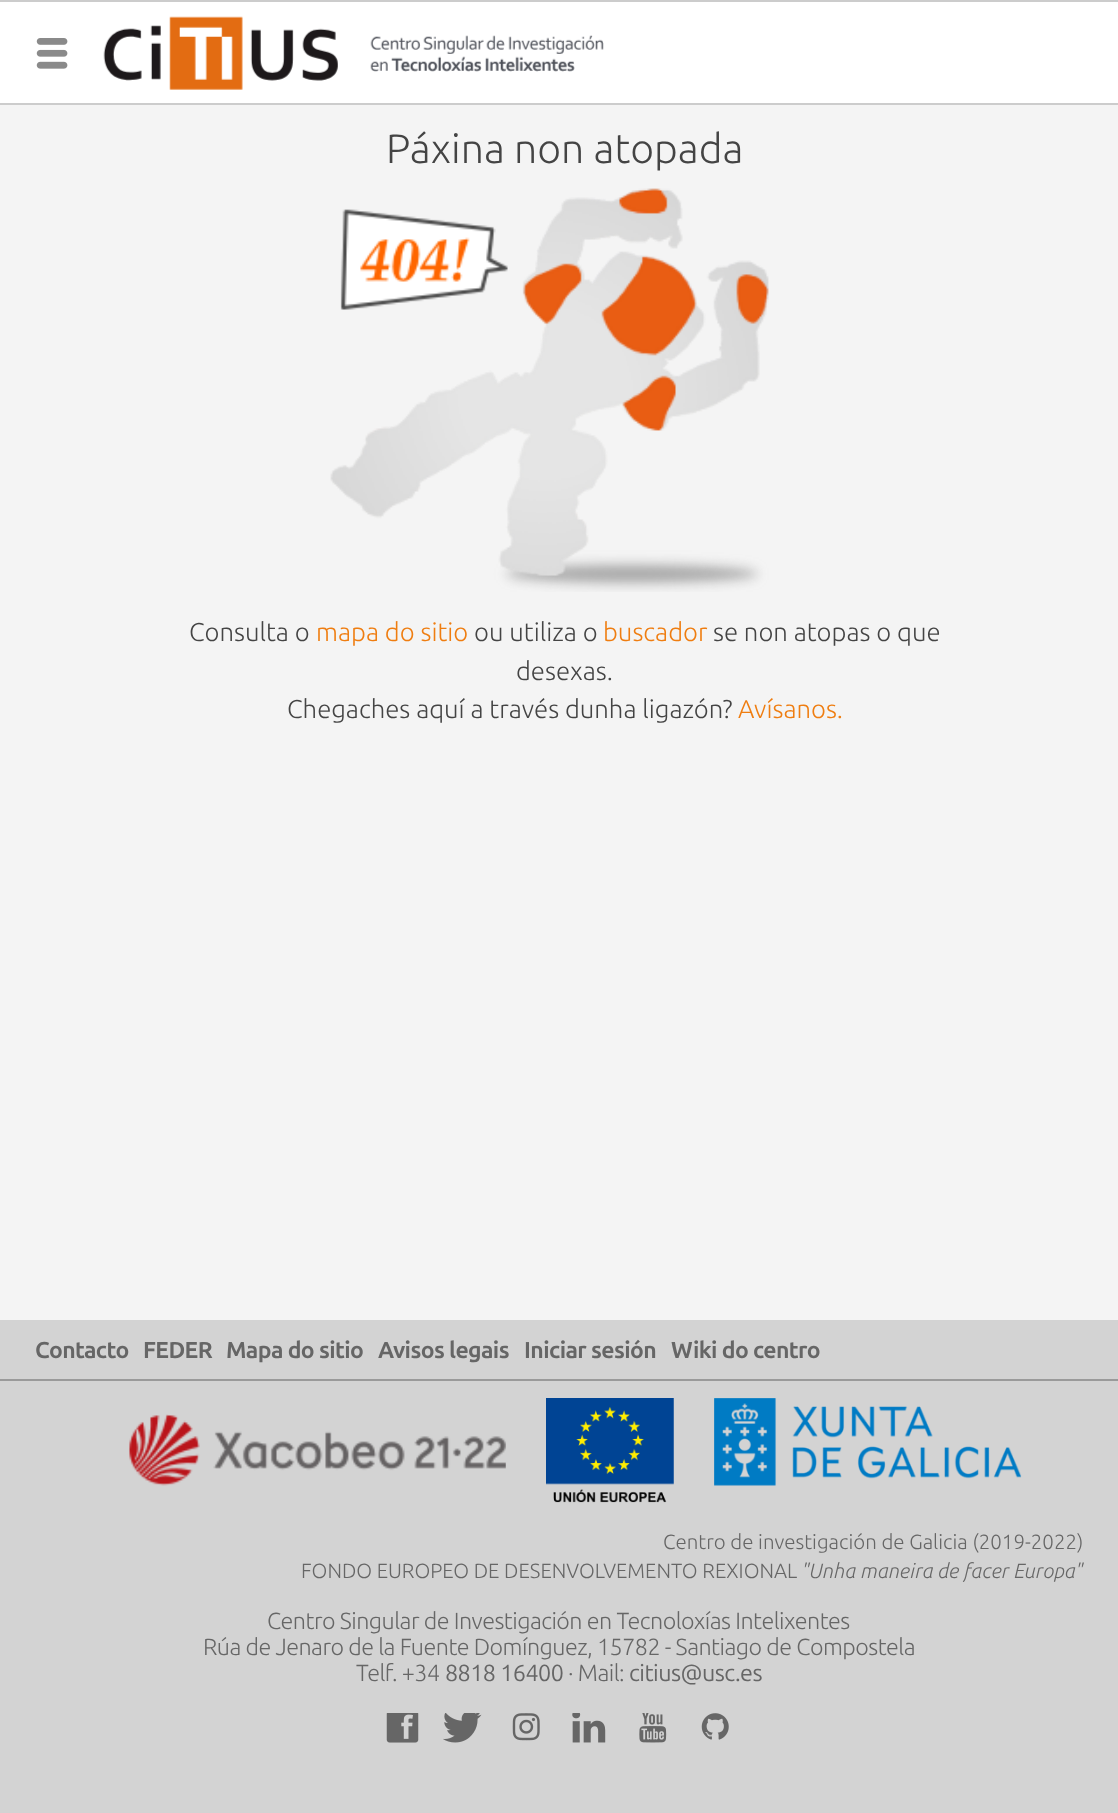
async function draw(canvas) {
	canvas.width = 1118;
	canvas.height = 1813;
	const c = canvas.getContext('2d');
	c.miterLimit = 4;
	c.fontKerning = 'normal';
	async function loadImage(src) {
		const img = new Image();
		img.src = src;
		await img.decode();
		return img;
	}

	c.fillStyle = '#f4f4f4';
	c.fillRect(0, 0, 1118, 1813);
	for (const [x, y, w, h, color] of [
		[0, 2, 1118, 3, '#fff'],
		[0, 5, 1118, 98, '#ffffffeb'],
		[0, 0, 1118, 2, '#ccc'],
		[0, 103, 1118, 2, '#ccc'],
	]) {
		c.fillStyle = color;
		c.fillRect(x, y, w, h);
	}
	c.drawImage(await loadImage('img1.png'), 36, 38, 32, 31);
	c.drawImage(await loadImage('img2.png'), 103, 16, 501, 74);
	c.font = '300 41px Ubuntu';
	c.fillStyle = '#444';
	c.fillText('Páxina non atopada', 386, 163);
	c.drawImage(await loadImage('img3.png'), 330, 188, 439, 404);
	c.font = '300 25.7px Ubuntu';
	c.fillText('Consulta o', 189, 641);
	c.fillStyle = '#ef7d10';
	c.fillText('mapa do sitio', 316, 641);
	c.fillStyle = '#444';
	c.fillText('ou utiliza o', 474, 641);
	c.fillStyle = '#ef7d10';
	c.fillText('buscador', 603, 641);
	c.fillStyle = '#444';
	for (const [text, x, y] of [
		['se non atopas o que', 713, 641],
		['desexas.', 516, 680],
		['Chegaches aquí a través dunha ligazón?', 287, 718],
	]) {
		c.fillText(text, x, y);
	}
	c.fillStyle = '#ef7d10';
	c.fillText('Avísanos.', 738, 718);
	c.fillStyle = '#d3d3d3';
	c.fillRect(0, 1320, 1118, 59);
	c.letterSpacing = '-0.6px';
	c.font = 'bold 23px Ubuntu';
	c.fillStyle = '#666';
	for (const [text, x, y] of [
		['Contacto', 35, 1358],
		['FEDER', 143, 1358],
		['Mapa do sitio', 226, 1358],
		['Avisos legais', 378, 1358],
		['Iniciar sesión', 524, 1358],
		['Wiki do centro', 671, 1358],
	]) {
		c.fillText(text, x, y);
	}
	c.fillStyle = '#d3d3d3';
	c.fillRect(0, 1381, 1118, 432);
	c.fillStyle = '#9a9a9a';
	c.fillRect(0, 1379, 1118, 2);
	c.drawImage(await loadImage('img4.png'), 129, 1414, 377, 72);
	c.drawImage(await loadImage('img5.png'), 546, 1398, 128, 105);
	c.drawImage(await loadImage('img6.png'), 714, 1398, 308, 88);
	c.letterSpacing = '0px';
	c.font = '300 20.5px Ubuntu';
	c.fillStyle = '#666';
	c.fillText('Centro de investigación de Galicia (2019-2022)', 663, 1549);
	c.fillText('FONDO EUROPEO DE DESENVOLVEMENTO REXIONAL', 301, 1578);
	c.font = 'italic 300 20.5px Ubuntu';
	c.fillText('"Unha maneira de facer Europa"', 802, 1578);
	c.letterSpacing = '-0.53px';
	c.font = '300 23.3px Ubuntu';
	for (const [text, x, y] of [
		['Centro Singular de Investigación en Tecnoloxías Intelixentes', 267, 1629],
		['Rúa de Jenaro de la Fuente Domínguez, 15782 - Santiago de Compostela', 203, 1655],
		['Telf. +34', 356, 1681],
	]) {
		c.fillText(text, x, y);
	}
	c.font = '23.3px Ubuntu';
	c.fillText('8818 16400', 445, 1681);
	c.font = '300 23.3px Ubuntu';
	c.fillText('· Mail:', 568, 1681);
	c.font = '23.3px Ubuntu';
	c.fillText('citius@usc.es', 629, 1681);
	c.drawImage(await loadImage('img7.png'), 386, 1713, 33, 30);
	c.drawImage(await loadImage('img8.png'), 443, 1713, 39, 30);
	c.drawImage(await loadImage('img9.png'), 512, 1713, 28, 28);
	c.drawImage(await loadImage('img10.png'), 572, 1713, 34, 30);
	c.drawImage(await loadImage('img11.png'), 639, 1713, 28, 30);
	c.drawImage(await loadImage('img12.png'), 701, 1713, 28, 27);
}

draw(document.querySelector('canvas'));
